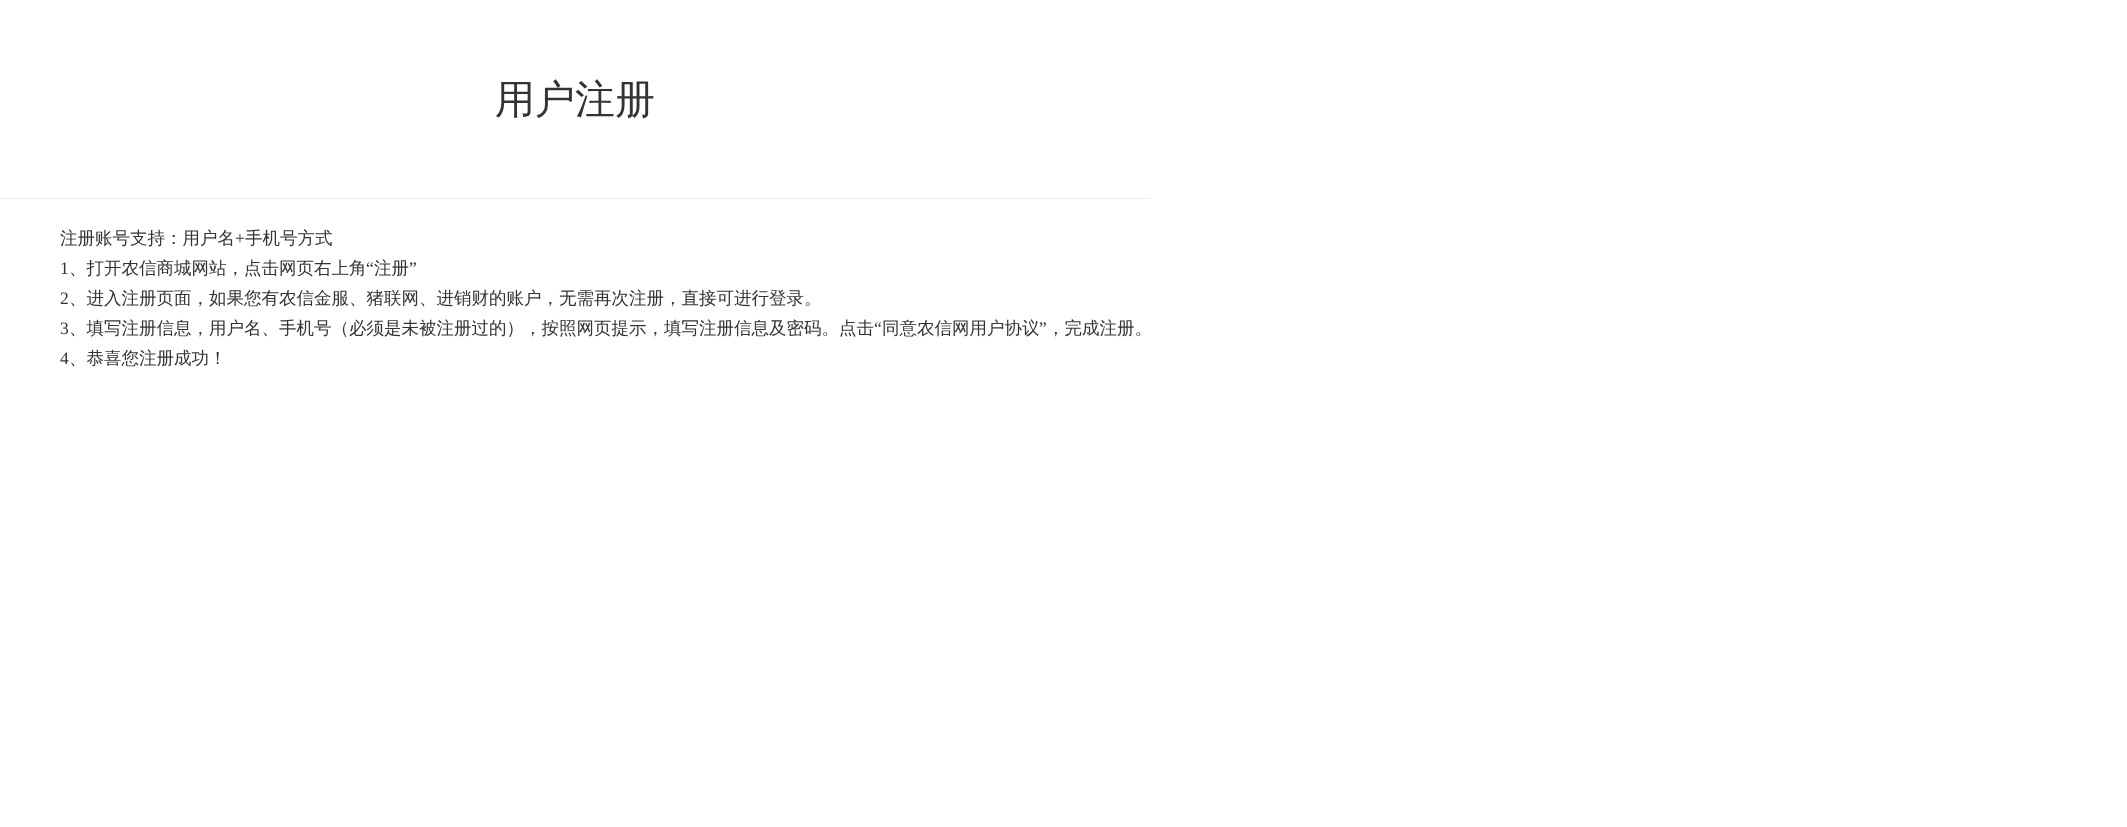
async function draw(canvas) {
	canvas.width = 2127;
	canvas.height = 827;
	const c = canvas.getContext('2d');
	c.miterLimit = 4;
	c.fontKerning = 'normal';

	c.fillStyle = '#fff';
	c.fillRect(0, 0, 2127, 827);
	c.fillStyle = '#ededed';
	c.fillRect(0, 198, 1150, 1);
	c.font = '500 40px WenQuanYi Zen Hei';
	c.fillStyle = '#333';
	c.fillText('用户注册', 495, 113);
	c.font = '500 17.5px WenQuanYi Zen Hei';
	c.fillText('注册账号支持：用户名', 60, 244);
	c.font = '17.5px Liberation Serif';
	c.fillText('+', 235, 244);
	c.font = '500 17.5px WenQuanYi Zen Hei';
	c.fillText('手机号方式', 245, 244);
	c.font = '17.5px Liberation Serif';
	c.fillText('1', 60, 274);
	c.font = '500 17.5px WenQuanYi Zen Hei';
	c.fillText('、打开农信商城网站，点击网页右上角', 69, 274);
	c.font = '17.5px Liberation Serif';
	c.fillText('“', 366, 274);
	c.font = '500 17.5px WenQuanYi Zen Hei';
	c.fillText('注册', 374, 274);
	c.font = '17.5px Liberation Serif';
	c.fillText('”', 409, 274);
	c.fillText('2', 60, 304);
	c.font = '500 17.5px WenQuanYi Zen Hei';
	c.fillText('、进入注册页面，如果您有农信金服、猪联网、进销财的账户，无需再次注册，直接可进行登录。', 69, 304);
	c.font = '17.5px Liberation Serif';
	c.fillText('3', 60, 334);
	c.font = '500 17.5px WenQuanYi Zen Hei';
	c.fillText('、填写注册信息，用户名、手机号（必须是未被注册过的），按照网页提示，填写注册信息及密码。点击', 69, 334);
	c.font = '17.5px Liberation Serif';
	c.fillText('“', 874, 334);
	c.font = '500 17.5px WenQuanYi Zen Hei';
	c.fillText('同意农信网用户协议', 882, 334);
	c.font = '17.5px Liberation Serif';
	c.fillText('”', 1039, 334);
	c.font = '500 17.5px WenQuanYi Zen Hei';
	c.fillText('，完成注册。', 1047, 334);
	c.font = '17.5px Liberation Serif';
	c.fillText('4', 60, 364);
	c.font = '500 17.5px WenQuanYi Zen Hei';
	c.fillText('、恭喜您注册成功！', 69, 364);
}

draw(document.querySelector('canvas'));
